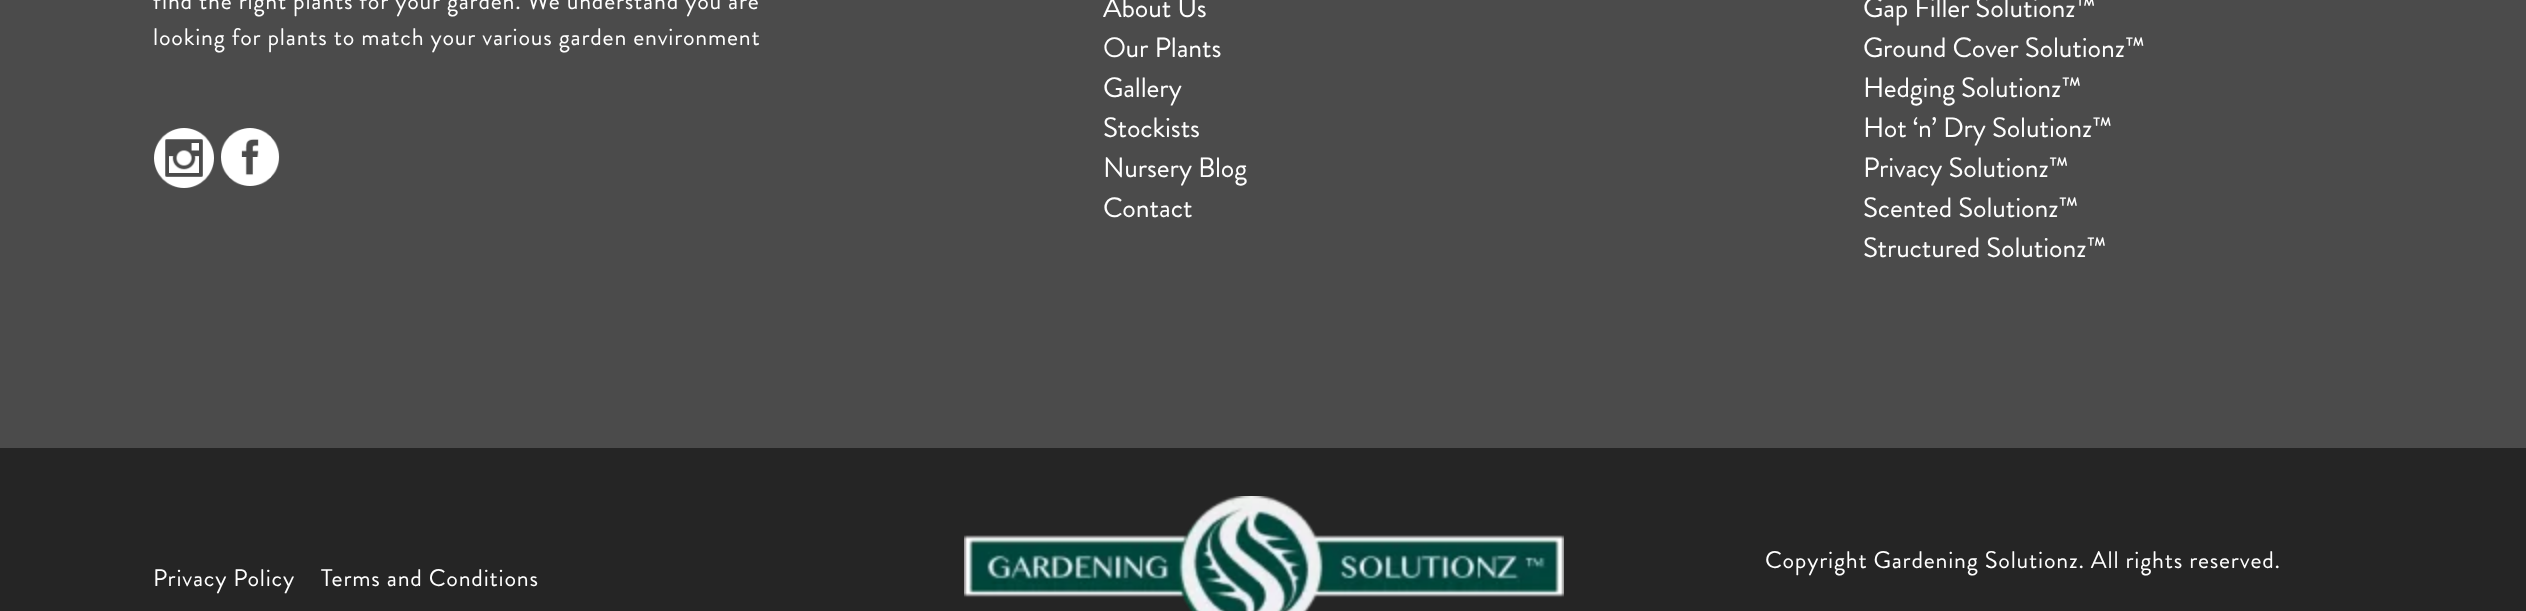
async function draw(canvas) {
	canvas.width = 2526;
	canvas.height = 611;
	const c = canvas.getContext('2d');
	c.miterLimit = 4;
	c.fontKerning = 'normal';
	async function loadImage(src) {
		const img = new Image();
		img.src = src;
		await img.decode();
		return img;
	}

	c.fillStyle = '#4b4b4b';
	c.fillRect(0, 0, 2526, 611);
	c.letterSpacing = '0.8px';
	c.font = '24px Brandon Grotesque';
	c.fillStyle = '#fff';
	c.fillText('find the right plants for your garden. We understand you are', 153, 9);
	c.fillText('looking for plants to match your various garden environment', 153, 45);
	c.drawImage(await loadImage('img1.png'), 154, 128, 60, 60);
	c.drawImage(await loadImage('img2.png'), 221, 128, 59, 58);
	c.letterSpacing = '-0.1px';
	c.font = '28px Brandon Grotesque';
	for (const [text, x, y] of [
		['About Us', 1103, 17],
		['Our Plants', 1103, 57],
		['Gallery', 1103, 97],
		['Stockists', 1103, 137],
		['Nursery Blog', 1103, 177],
		['Contact', 1103, 217],
		['Gap Filler Solutionz™', 1863, 17],
		['Ground Cover Solutionz™', 1863, 57],
		['Hedging Solutionz™', 1863, 97],
		['Hot ‘n’ Dry Solutionz™', 1863, 137],
		['Privacy Solutionz™', 1863, 177],
		['Scented Solutionz™', 1863, 217],
		['Structured Solutionz™', 1863, 257],
	]) {
		c.fillText(text, x, y);
	}
	c.fillStyle = '#252525';
	c.fillRect(0, 448, 2526, 163);
	c.drawImage(await loadImage('img3.png'), 964, 496, 600, 115);
	c.letterSpacing = '0.8px';
	c.font = '24px Brandon Grotesque';
	c.fillStyle = '#fff';
	for (const [text, x, y] of [
		['Copyright Gardening Solutionz. All rights reserved.', 1765, 568],
		['Privacy Policy', 153, 586],
		['Terms and Conditions', 321, 586],
	]) {
		c.fillText(text, x, y);
	}
}

draw(document.querySelector('canvas'));
